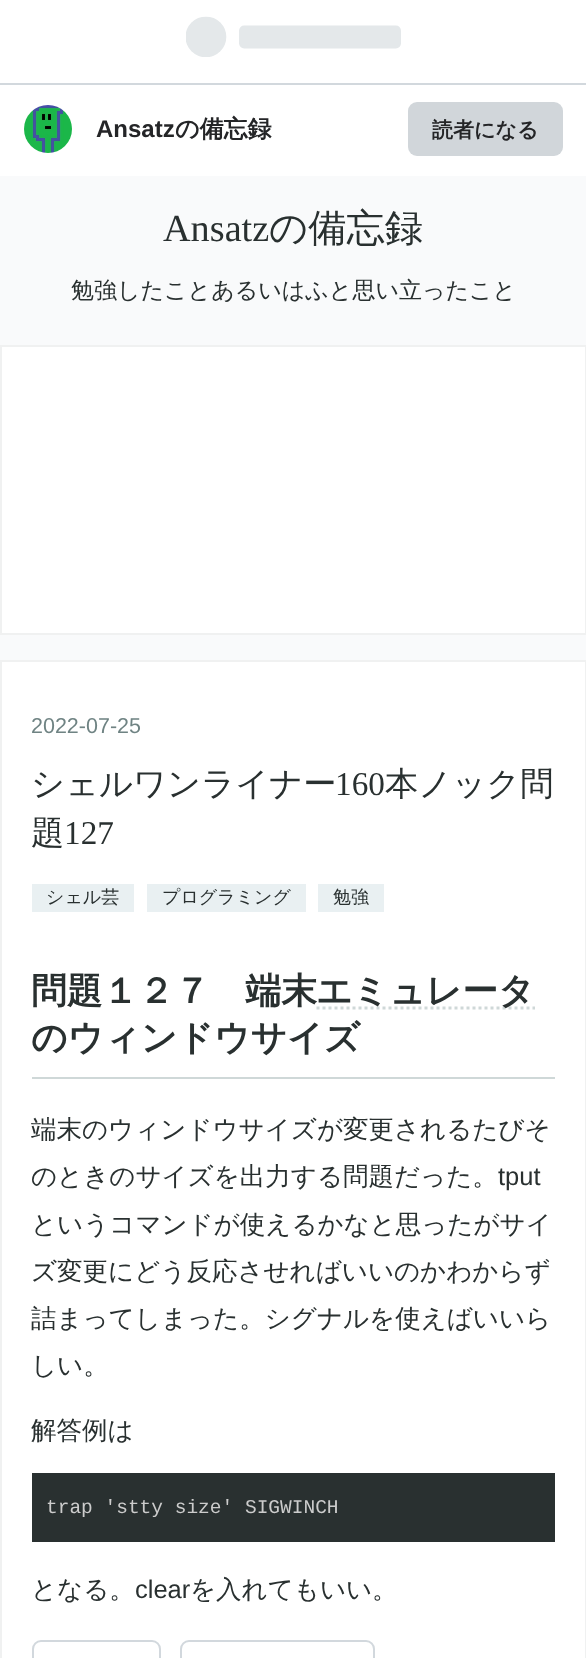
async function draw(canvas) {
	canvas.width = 586;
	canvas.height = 1658;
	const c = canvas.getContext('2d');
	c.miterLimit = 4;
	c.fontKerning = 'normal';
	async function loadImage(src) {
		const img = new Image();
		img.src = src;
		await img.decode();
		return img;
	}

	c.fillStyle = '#f9fafb';
	c.fillRect(0, 0, 586, 1658);
	c.fillStyle = '#fff';
	c.fillRect(0, 0, 586, 83);
	c.fillStyle = '#d2d8dd';
	c.fillRect(0, 83, 586, 2);
	c.drawImage(await loadImage('img1.png'), 186, 16, 215, 41);
	c.fillStyle = '#fff';
	c.fillRect(0, 85, 586, 91);
	c.drawImage(await loadImage('img2.png'), 24, 105, 48, 48);
	c.font = 'bold 24px Liberation Sans';
	c.fillStyle = '#242527';
	c.fillText('Ansatz', 96, 137);
	c.font = 'bold 24px WenQuanYi Zen Hei';
	c.fillText('の備忘録', 175, 137);
	c.fillStyle = '#d1d6da';
	c.beginPath();
	c.roundRect(408, 102, 155, 54, 9);
	c.fill();
	c.font = 'bold 21px WenQuanYi Zen Hei';
	c.fillStyle = '#242527';
	c.fillText('読者になる', 432, 137);
	c.font = '38.25px Liberation Serif';
	c.fillStyle = '#293030';
	c.fillText('Ansatz', 163, 241);
	c.font = '500 38.25px WenQuanYi Zen Hei';
	c.fillText('の備忘録', 269, 241);
	c.font = '500 23px WenQuanYi Zen Hei';
	c.fillText('勉強したことあるいはふと思い立ったこと', 71, 298);
	c.fillStyle = '#fff';
	c.beginPath();
	c.rect(1, 346, 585, 288);
	c.fill();
	c.strokeStyle = '#f0f1f1';
	c.lineWidth = 2;
	c.stroke();
	c.beginPath();
	c.rect(1, 661, 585, 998);
	c.fill();
	c.stroke();
	c.font = '21.5px Liberation Sans';
	c.fillStyle = '#6f8383';
	c.fillText('2022-07-25', 31, 733);
	c.font = '500 33.25px WenQuanYi Zen Hei';
	c.fillStyle = '#293030';
	c.fillText('シェルワンライナー', 31, 795);
	c.font = '33.25px Liberation Serif';
	c.fillText('160', 335, 795);
	c.font = '500 33.25px WenQuanYi Zen Hei';
	c.fillText('本ノック問', 385, 795);
	c.fillText('題', 31, 844);
	c.font = '33.25px Liberation Serif';
	c.fillText('127', 64, 844);
	c.fillStyle = '#e9f0f2';
	c.fillRect(32, 884, 102, 28);
	c.font = '500 18px WenQuanYi Zen Hei';
	c.fillStyle = '#293030';
	c.fillText('シェル芸', 46, 903);
	c.fillStyle = '#e9f0f2';
	c.fillRect(147, 884, 159, 28);
	c.fillStyle = '#293030';
	c.fillText('プログラミング', 162, 903);
	c.fillStyle = '#e9f0f2';
	c.fillRect(318, 884, 66, 28);
	c.fillStyle = '#293030';
	c.fillText('勉強', 333, 903);
	c.fillStyle = '#cfd8d8';
	c.fillRect(32, 1077, 523, 2);
	c.font = 'bold 35.75px WenQuanYi Zen Hei';
	c.fillStyle = '#293030';
	c.fillText('問題１２７　端末', 31, 1003);
	c.beginPath();
	c.moveTo(316.5, 1008);
	c.lineTo(535, 1008);
	c.strokeStyle = '#cfd8d8';
	c.lineWidth = 3;
	c.setLineDash([3, 3]);
	c.stroke();
	c.fillText('エミュレータ', 316, 1003);
	c.fillText('のウィンドウサイズ', 31, 1050);
	c.font = '500 25.5px WenQuanYi Zen Hei';
	c.fillText('端末のウィンドウサイズが変更されるたびそ', 31, 1138);
	c.fillText('のときのサイズを出力する問題だった。', 31, 1185);
	c.font = '25.5px Liberation Sans';
	c.fillText('tput', 498, 1185);
	c.font = '500 25.5px WenQuanYi Zen Hei';
	for (const [text, x, y] of [
		['というコマンドが使えるかなと思ったがサイ', 31, 1233],
		['ズ変更にどう反応させればいいのかわからず', 31, 1280],
		['詰まってしまった。シグナルを使えばいいら', 31, 1327],
		['しい。', 31, 1374],
		['解答例は', 31, 1439],
	]) {
		c.fillText(text, x, y);
	}
	c.fillRect(32, 1473, 523, 69);
	c.font = '19.5px Liberation Mono';
	c.fillStyle = '#ccc';
	c.fillText('trap \'stty size\' SIGWINCH', 46, 1513);
	c.font = '500 25.5px WenQuanYi Zen Hei';
	c.fillStyle = '#293030';
	c.fillText('となる。', 31, 1598);
	c.font = '25.5px Liberation Sans';
	c.fillText('clear', 135, 1598);
	c.font = '500 25.5px WenQuanYi Zen Hei';
	c.fillText('を入れてもいい。', 190, 1598);
	c.beginPath();
	c.roundRect(33, 1641, 127, 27, 8);
	c.strokeStyle = '#d2d8dd';
	c.lineWidth = 2;
	c.setLineDash([]);
	c.stroke();
	c.beginPath();
	c.roundRect(181, 1641, 193, 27, 8);
	c.stroke();
}

draw(document.querySelector('canvas'));
